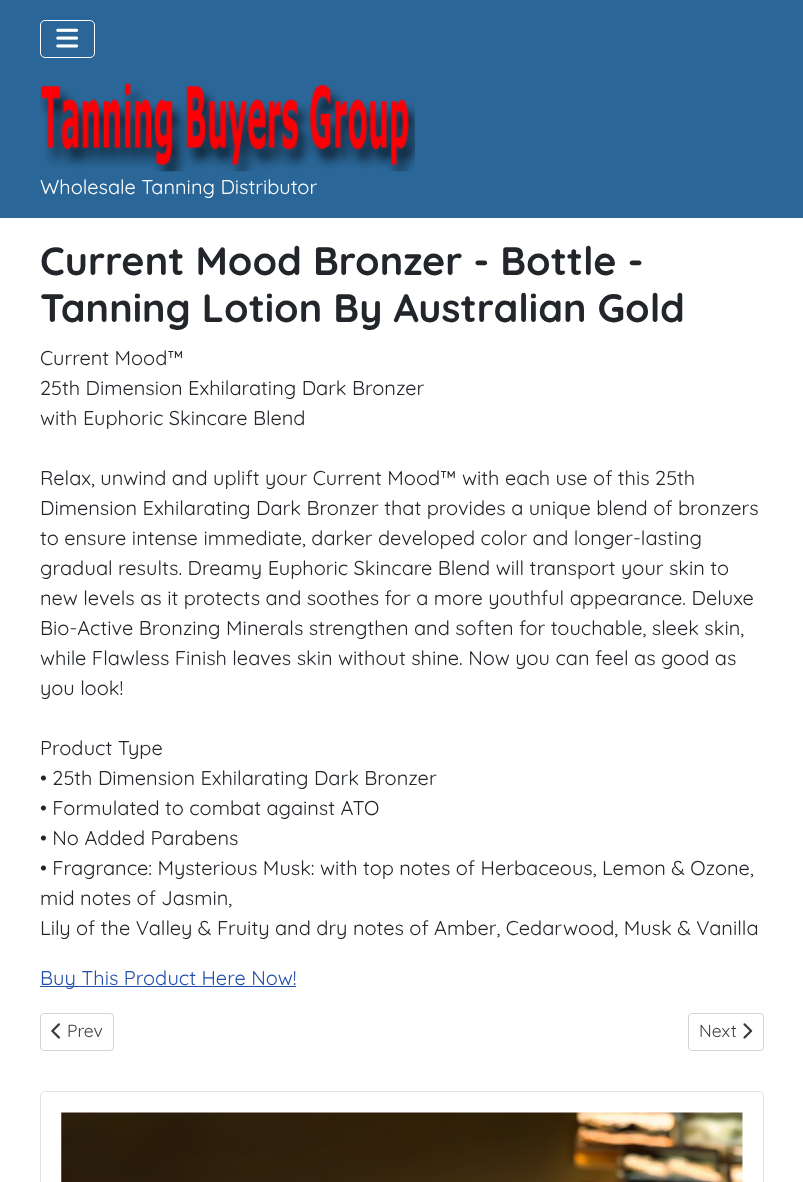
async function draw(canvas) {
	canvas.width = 803;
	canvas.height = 1182;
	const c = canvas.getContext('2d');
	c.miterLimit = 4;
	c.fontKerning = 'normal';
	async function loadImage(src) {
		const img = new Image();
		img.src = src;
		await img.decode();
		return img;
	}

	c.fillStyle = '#fff';
	c.fillRect(0, 0, 803, 1182);
	c.fillStyle = '#2a6697';
	c.fillRect(0, 0, 803, 218);
	c.beginPath();
	c.roundRect(40.5, 20.5, 54, 37, 4.5);
	c.strokeStyle = '#fff';
	c.stroke();
	c.drawImage(await loadImage('img1.png'), 56, 28, 23, 20);
	c.drawImage(await loadImage('img2.png'), 40, 83, 375, 89);
	c.font = '20px Quicksand';
	c.fillStyle = '#fff';
	c.fillText('Wholesale Tanning Distributor', 40, 194);
	c.font = 'bold 39.5px Quicksand';
	c.fillStyle = '#22262a';
	c.fillText('Current Mood Bronzer - Bottle -', 40, 275);
	c.fillText('Tanning Lotion By Australian Gold', 40, 322);
	c.font = '20px Quicksand';
	for (const [text, x, y] of [
		['Current Mood™', 40, 365],
		['25th Dimension Exhilarating Dark Bronzer', 40, 395],
		['with Euphoric Skincare Blend', 40, 425],
		['Relax, unwind and uplift your Current Mood™ with each use of this 25th', 40, 485],
		['Dimension Exhilarating Dark Bronzer that provides a unique blend of bronzers', 40, 515],
		['to ensure intense immediate, darker developed color and longer-lasting', 40, 545],
		['gradual results. Dreamy Euphoric Skincare Blend will transport your skin to', 40, 575],
		['new levels as it protects and soothes for a more youthful appearance. Deluxe', 40, 605],
		['Bio-Active Bronzing Minerals strengthen and soften for touchable, sleek skin,', 40, 635],
		['while Flawless Finish leaves skin without shine. Now you can feel as good as', 40, 665],
		['you look!', 40, 695],
		['Product Type', 40, 755],
		['• 25th Dimension Exhilarating Dark Bronzer', 40, 785],
		['• Formulated to combat against ATO', 40, 815],
		['• No Added Parabens', 40, 845],
		['• Fragrance: Mysterious Musk: with top notes of Herbaceous, Lemon & Ozone,', 40, 875],
		['mid notes of Jasmin,', 40, 905],
		['Lily of the Valley & Fruity and dry notes of Amber, Cedarwood, Musk & Vanilla', 40, 935],
	]) {
		c.fillText(text, x, y);
	}
	c.fillStyle = '#224faa';
	c.fillRect(40, 986, 256, 1);
	c.fillText('Buy This Product Here Now!', 40, 985);
	c.beginPath();
	c.roundRect(40.5, 1013.5, 73, 37, 3.5);
	c.strokeStyle = '#ced4da';
	c.stroke();
	c.drawImage(await loadImage('img3.png'), 51, 1023, 9, 16);
	c.font = '17.5px Quicksand';
	c.fillStyle = '#353b41';
	c.fillText('Prev', 67, 1037);
	c.beginPath();
	c.roundRect(688.5, 1013.5, 75, 37, 3.5);
	c.stroke();
	c.fillText('Next', 699, 1037);
	c.drawImage(await loadImage('img4.png'), 743, 1023, 10, 16);
	c.beginPath();
	c.roundRect(40.5, 1091.5, 723, 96, 4.5);
	c.strokeStyle = '#dfe3e7';
	c.stroke();
	c.drawImage(await loadImage('img5.png'), 61, 1112, 682, 70);
}

draw(document.querySelector('canvas'));
